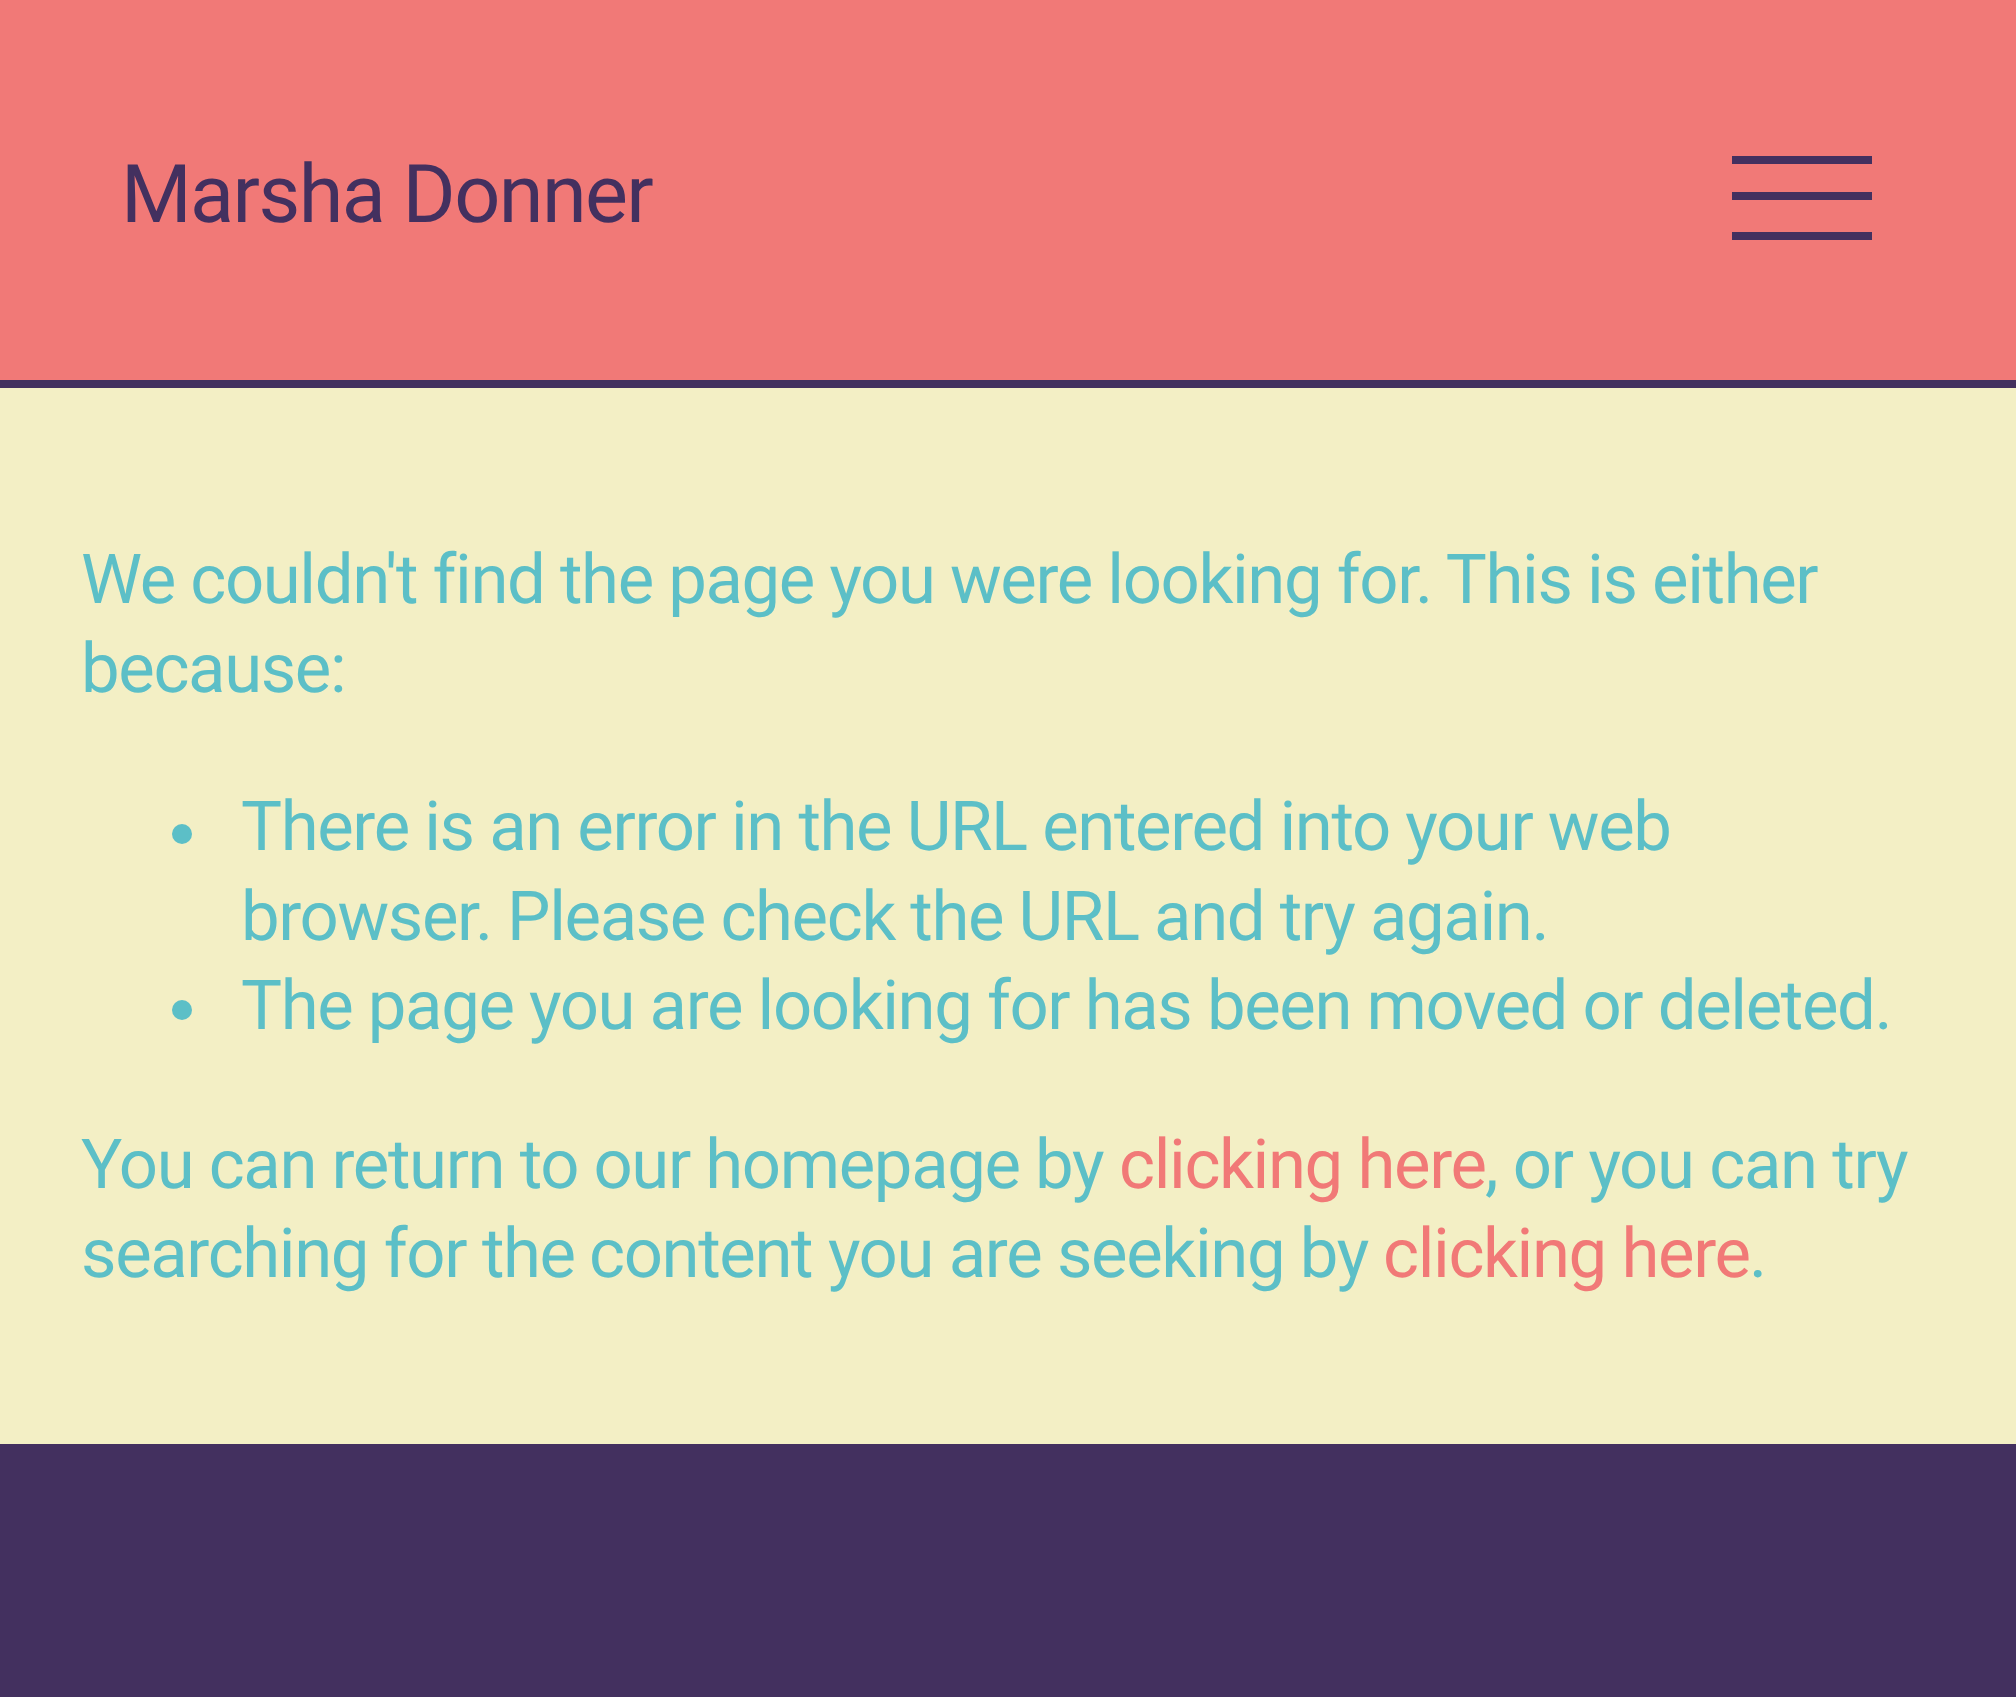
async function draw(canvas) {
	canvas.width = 2016;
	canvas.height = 1697;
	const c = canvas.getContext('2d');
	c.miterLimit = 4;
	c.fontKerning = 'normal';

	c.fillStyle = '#f3efc5';
	c.fillRect(0, 0, 2016, 1697);
	c.fillStyle = '#f17977';
	c.fillRect(0, 0, 2016, 380);
	c.letterSpacing = '-1.6px';
	c.font = '81px Roboto';
	c.fillStyle = '#43305f';
	c.fillText('Marsha Donner', 121, 222);
	for (const [x, y, w, h, color] of [
		[1732, 156, 140, 8, '#43305f'],
		[1732, 192, 140, 8, '#43305f'],
		[1732, 232, 140, 8, '#43305f'],
		[0, 380, 2016, 8, '#43305f'],
	]) {
		c.fillStyle = color;
		c.fillRect(x, y, w, h);
	}
	c.letterSpacing = '-1.38px';
	c.wordSpacing = '-0.25px';
	c.font = '68.85px Roboto';
	c.fillStyle = '#5cbfc7';
	c.fillText('We couldn\'t find the page you were looking for. This is either', 81, 603);
	c.wordSpacing = '0px';
	c.fillText('because:', 81, 692);
	c.beginPath();
	c.arc(182, 834, 10, 0, 2 * Math.PI);
	c.fill();
	c.wordSpacing = '-0.25px';
	c.fillText('There is an error in the URL entered into your web', 241, 850);
	c.fillText('browser. Please check the URL and try again.', 241, 940);
	c.beginPath();
	c.arc(182, 1010, 10, 0, 2 * Math.PI);
	c.fill();
	c.fillText('The page you are looking for has been moved or deleted.', 241, 1029);
	c.fillText('You can return to our homepage by', 81, 1188);
	c.wordSpacing = '0px';
	c.fillStyle = '#f17977';
	c.fillText('clicking here', 1119, 1188);
	c.fillStyle = '#5cbfc7';
	for (const [text, x, y] of [
		[', or you can try', 1485, 1188],
		['searching for the', 81, 1277],
		['content you are seeking by', 589, 1277],
	]) {
		c.fillText(text, x, y);
	}
	c.fillStyle = '#f17977';
	c.fillText('clicking here', 1383, 1277);
	c.fillStyle = '#5cbfc7';
	c.fillText('.', 1749, 1277);
	c.fillStyle = '#43305f';
	c.fillRect(0, 1444, 2016, 253);
}

draw(document.querySelector('canvas'));
